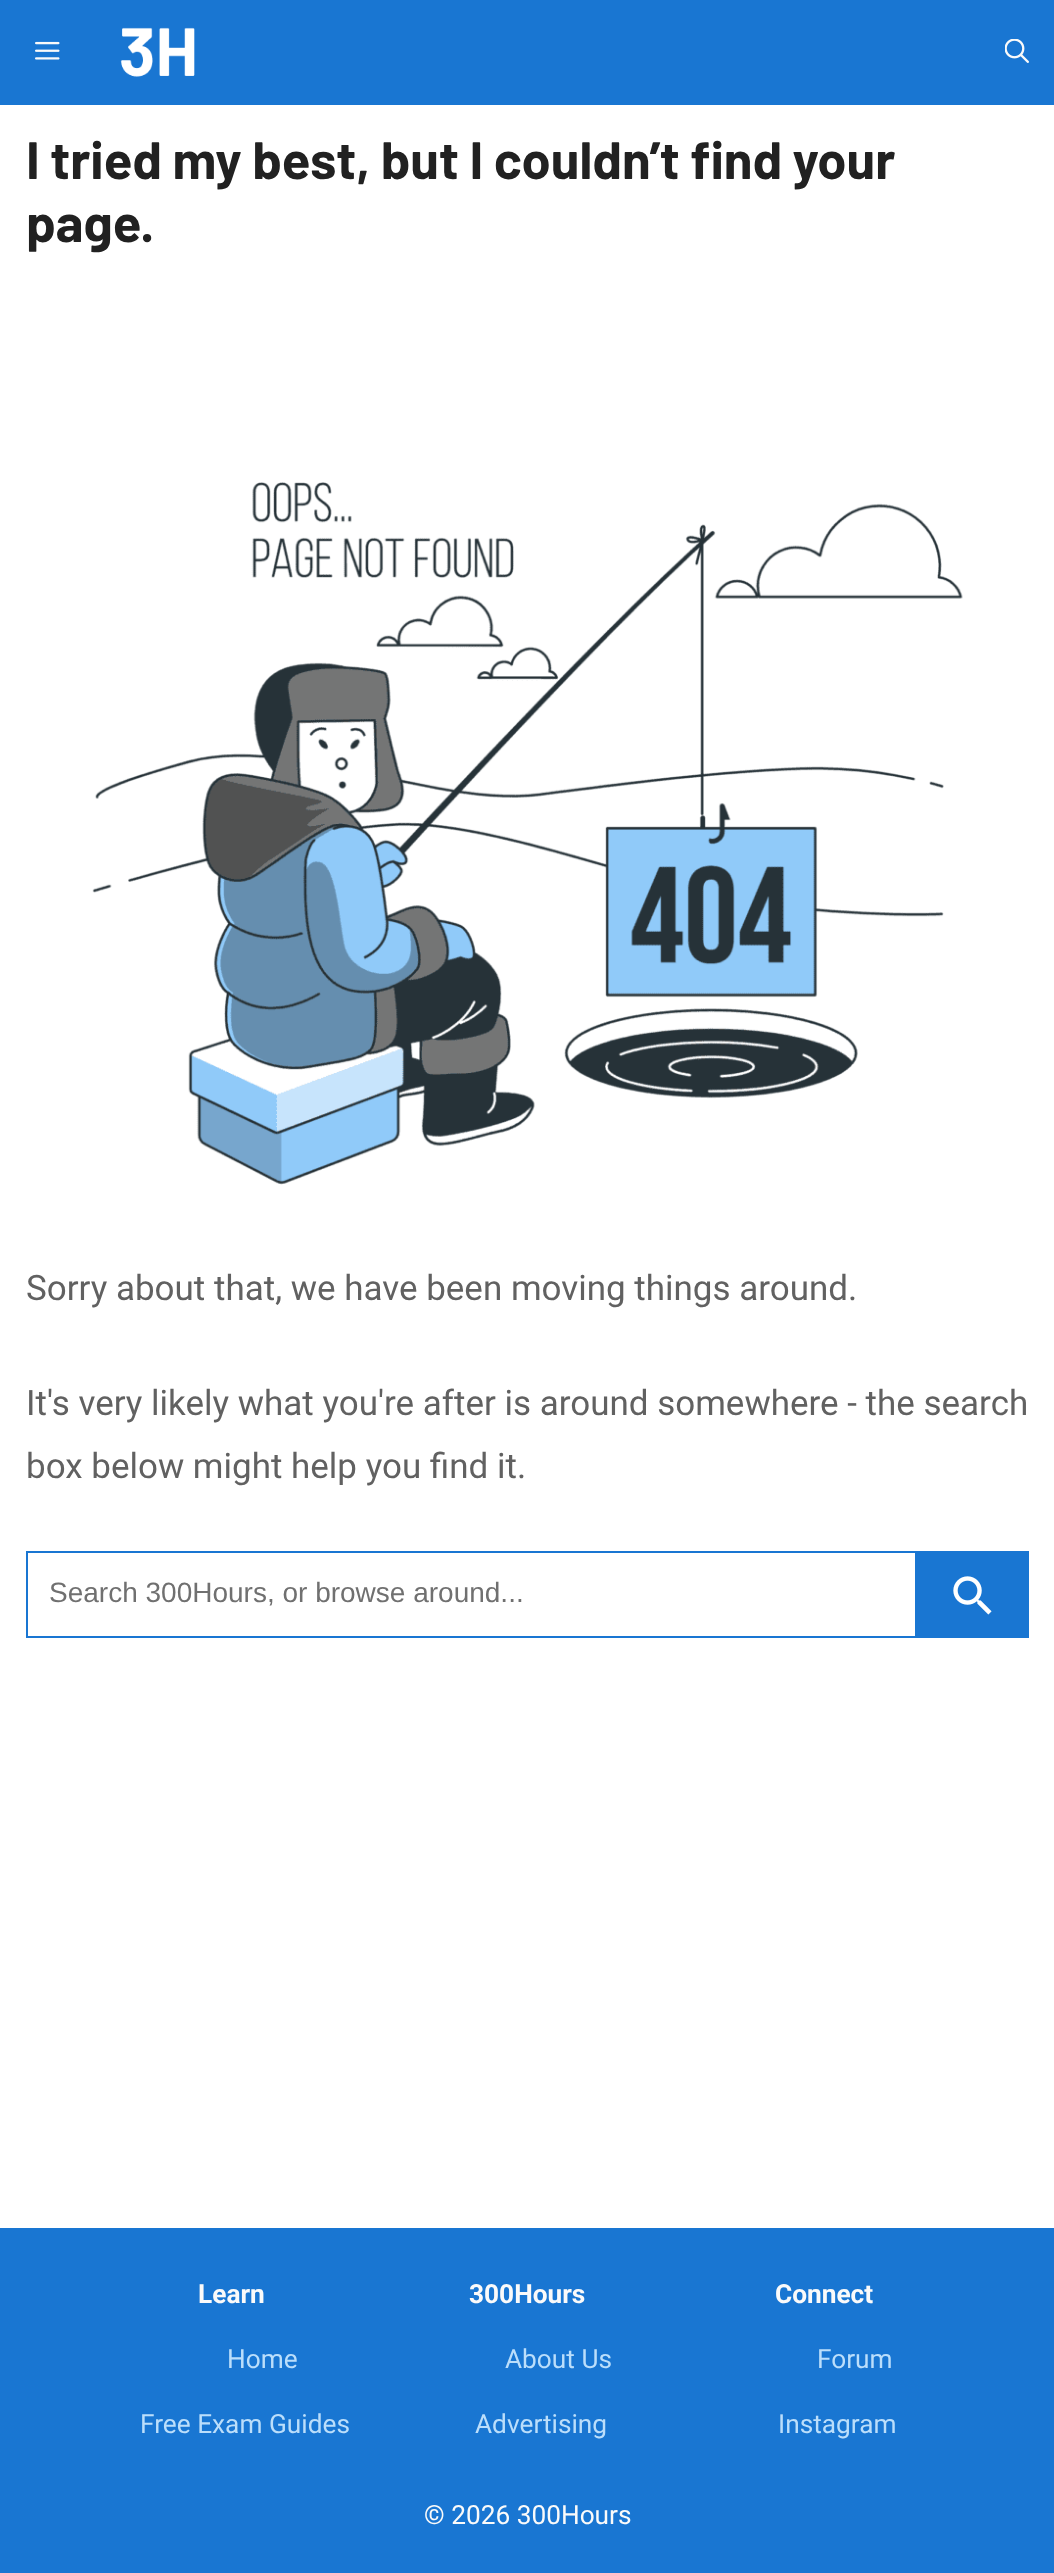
async function draw(canvas) {
	canvas.width = 1054;
	canvas.height = 2573;
	const c = canvas.getContext('2d');
	c.miterLimit = 4;
	c.fontKerning = 'normal';
	async function loadImage(src) {
		const img = new Image();
		img.src = src;
		await img.decode();
		return img;
	}

	c.fillStyle = '#fff';
	c.fillRect(0, 0, 1054, 2573);
	c.fillStyle = '#1976d2';
	c.fillRect(0, 0, 1054, 105);
	c.drawImage(await loadImage('img1.png'), 35, 41, 25, 19);
	c.drawImage(await loadImage('img2.png'), 120, 27, 75, 50);
	c.drawImage(await loadImage('img3.png'), 1005, 39, 24, 24);
	c.font = 'bold 52.5px Barlow';
	c.fillStyle = '#212121';
	c.fillText('I tried my best, but I couldn’t find your', 26, 179);
	c.fillText('page.', 26, 242);
	c.drawImage(await loadImage('img4.png'), 92, 482, 871, 703);
	c.font = '35px Roboto';
	c.fillStyle = '#616161';
	for (const [text, x, y] of [
		['Sorry about that, we have been moving things around.', 26, 1300],
		['It\'s very likely what you\'re after is around somewhere - the search', 26, 1415],
		['box below might help you find it.', 26, 1478],
	]) {
		c.fillText(text, x, y);
	}
	for (const [x, y, w, h, color] of [
		[26, 1551, 889, 2, '#1976d2'],
		[26, 1636, 889, 2, '#1976d2'],
		[26, 1551, 2, 87, '#1976d2'],
	]) {
		c.fillStyle = color;
		c.fillRect(x, y, w, h);
	}
	c.font = '28px Liberation Sans';
	c.fillStyle = '#707070';
	c.fillText('Search 300Hours, or browse around...', 49, 1602);
	c.fillStyle = '#1976d2';
	c.fillRect(915, 1551, 114, 87);
	c.drawImage(await loadImage('img5.png'), 953, 1576, 39, 39);
	c.fillRect(0, 2228, 1054, 345);
	c.font = 'bold 26.25px Roboto';
	c.fillStyle = '#fafafa';
	c.fillText('Learn', 198, 2303);
	c.font = '26.25px "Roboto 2"';
	c.fillStyle = '#bbdefb';
	c.fillText('Home', 227, 2368);
	c.fillText('Free Exam Guides', 140, 2433);
	c.font = 'bold 26.25px Roboto';
	c.fillStyle = '#fafafa';
	c.fillText('300Hours', 469, 2303);
	c.font = '26.25px "Roboto 2"';
	c.fillStyle = '#bbdefb';
	c.fillText('About Us', 505, 2368);
	c.fillText('Advertising', 475, 2433);
	c.font = 'bold 26.25px Roboto';
	c.fillStyle = '#fafafa';
	c.fillText('Connect', 775, 2303);
	c.font = '26.25px "Roboto 2"';
	c.fillStyle = '#bbdefb';
	c.fillText('Forum', 817, 2368);
	c.fillText('Instagram', 778, 2433);
	c.fillStyle = '#fafafa';
	c.fillText('© 2026 300Hours', 424, 2524);
}

draw(document.querySelector('canvas'));
